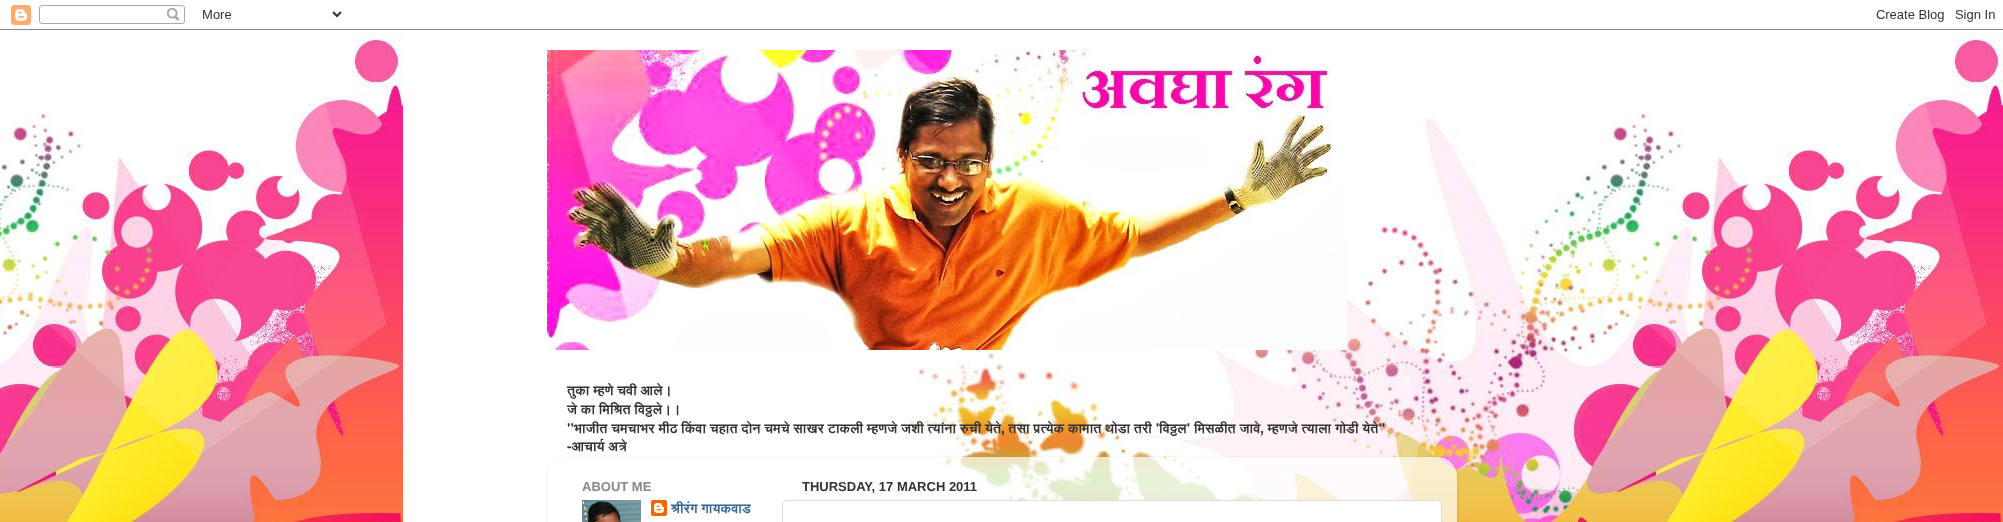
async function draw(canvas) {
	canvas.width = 2003;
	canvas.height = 522;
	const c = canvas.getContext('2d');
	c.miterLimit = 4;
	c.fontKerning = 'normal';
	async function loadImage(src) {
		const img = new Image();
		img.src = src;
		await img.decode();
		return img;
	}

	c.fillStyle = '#fff';
	c.fillRect(0, 0, 2003, 522);
	c.drawImage(await loadImage('img1.png'), 0, 0, 2003, 522);
	c.drawImage(await loadImage('img2.png'), 0, 5, 2003, 25);
	c.drawImage(await loadImage('img3.png'), 547, 50, 800, 300);
	c.font = '600 13.5px FreeSans';
	c.fillStyle = '#333';
	for (const [text, x, y] of [
		['तुका म्हणे चवी आले।', 567, 395],
		['जे का मिश्रित विठ्ठले।।', 567, 414],
		['\'\'भाजीत चमचाभर मीठ किंवा चहात दोन चमचे साखर टाकली म्हणजे जशी त्यांना रुची येते, तसा प्रत्येक कामात थोडा तरी \'विठ्ठल\' मिसळीत जावे, म्हणजे त्याला गोडी येते\'\'', 567, 433],
		['-आचार्य अत्रे', 567, 451],
	]) {
		c.fillText(text, x, y);
	}
	c.save();
	c.beginPath();
	c.moveTo(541, 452);
	c.lineTo(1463, 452);
	c.lineTo(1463, 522);
	c.lineTo(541, 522);
	c.closePath();
	c.moveTo(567, 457);
	c.lineTo(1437, 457);
	c.bezierCurveTo(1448, 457, 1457, 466, 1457, 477);
	c.lineTo(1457, 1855);
	c.lineTo(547, 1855);
	c.lineTo(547, 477);
	c.bezierCurveTo(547, 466, 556, 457, 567, 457);
	c.closePath();
	c.clip('evenodd');
	c.fillStyle = '#00000026';
	c.filter = 'blur(1.5px)';
	c.beginPath();
	c.roundRect(547, 458, 910, 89, 20);
	c.fill();
	c.filter = 'none';
	c.restore();
	c.drawImage(await loadImage('img4.png'), 941, 457, 516, 65);
	c.font = 'bold 13px Liberation Sans';
	c.fillStyle = '#888';
	c.fillText('ABOUT ME', 582, 491);
	c.drawImage(await loadImage('img5.png'), 582, 500, 59, 22);
	c.drawImage(await loadImage('img6.png'), 651, 500, 16, 16);
	c.font = '600 13.5px FreeSans';
	c.fillStyle = '#369';
	c.fillText('श्रीरंग गायकवाड', 671, 513);
	c.font = 'bold 13px Liberation Sans';
	c.fillStyle = '#333';
	c.fillText('THURSDAY, 17 MARCH 2011', 802, 491);
	c.fillStyle = '#fff';
	c.beginPath();
	c.roundRect(782.5, 500.5, 659, 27, 4.5);
	c.fill();
	c.strokeStyle = '#ddd';
	c.stroke();
}

draw(document.querySelector('canvas'));
